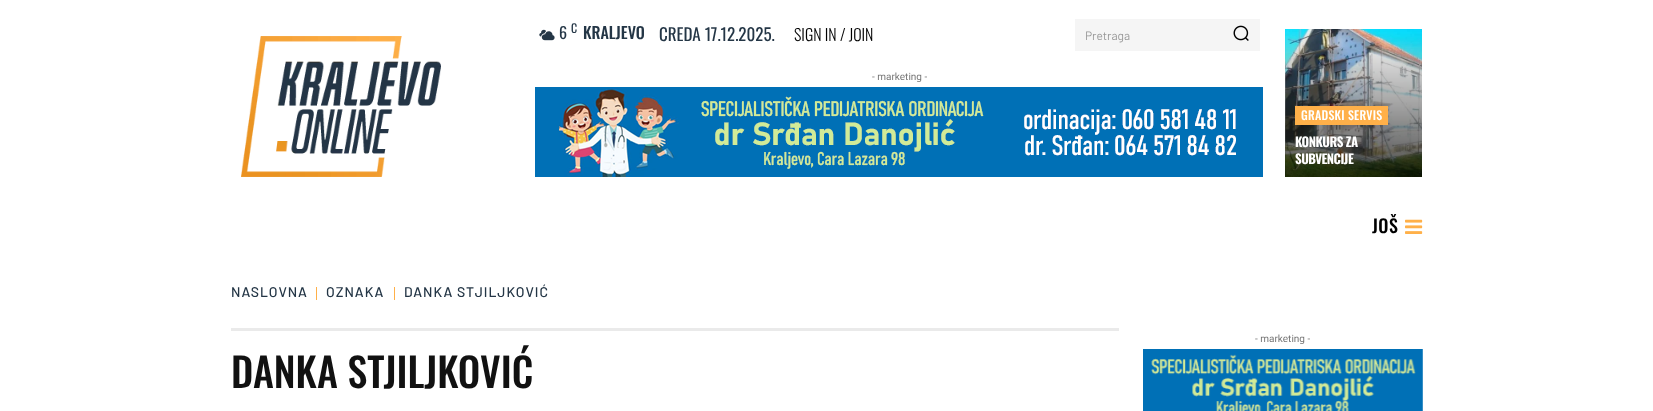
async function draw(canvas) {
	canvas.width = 1653;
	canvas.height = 411;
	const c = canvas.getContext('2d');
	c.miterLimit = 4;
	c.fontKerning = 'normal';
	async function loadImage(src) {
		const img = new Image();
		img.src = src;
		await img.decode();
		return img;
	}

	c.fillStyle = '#fff';
	c.fillRect(0, 0, 1653, 411);
	c.drawImage(await loadImage('img1.png'), 241, 36, 200, 141);
	c.drawImage(await loadImage('img2.png'), 539, 29, 16, 12);
	c.font = '16px Oswald';
	c.fillStyle = '#243646';
	c.fillText('6', 559, 39);
	c.font = '12px Oswald';
	c.fillText('C', 571, 33);
	c.font = '500 16px Oswald';
	c.fillText('KRALJEVO', 583, 39);
	c.font = '17px Oswald';
	c.fillText('CREDA 17.12.2025.', 659, 41);
	c.font = '300 16px Oswald';
	c.fillStyle = '#000';
	c.fillText('SIGN IN / JOIN', 794, 41);
	c.fillStyle = '#f5f5f5';
	c.fillRect(1075, 19, 185, 32);
	c.font = '12px Barlow';
	c.fillStyle = '#999';
	c.fillText('Pretraga', 1085, 40);
	c.drawImage(await loadImage('img3.png'), 1233, 25, 16, 16);
	c.font = '10px Roboto';
	c.fillStyle = '#767676';
	c.fillText('- marketing -', 872, 80);
	c.drawImage(await loadImage('img4.png'), 535, 87, 728, 90);
	c.drawImage(await loadImage('img5.png'), 1285, 29, 137, 148);
	c.fillStyle = '#ffb049';
	c.fillRect(1295, 106, 93, 19);
	c.letterSpacing = '0.25px';
	c.font = '500 12px Oswald';
	c.fillStyle = '#fff';
	c.fillText('GRADSKI SERVIS', 1301, 120);
	c.letterSpacing = '-0.5px';
	c.font = 'bold 13px Oswald';
	c.fillText('KONKURS ZA', 1295, 147);
	c.fillText('SUBVENCIJE', 1295, 164);
	c.letterSpacing = '0.5px';
	c.font = '500 18px Oswald';
	c.fillStyle = '#000';
	c.fillText('JOŠ', 1372, 233);
	c.drawImage(await loadImage('img6.png'), 1405, 219, 18, 15);
	c.letterSpacing = '1px';
	c.font = '500 14px Barlow';
	c.fillStyle = '#243646';
	c.fillText('NASLOVNA', 231, 297);
	c.fillStyle = '#ffb049';
	c.fillRect(316, 287, 1, 13);
	c.fillStyle = '#243646';
	c.fillText('OZNAKA', 326, 297);
	c.fillStyle = '#ffb049';
	c.fillRect(394, 287, 1, 13);
	c.fillStyle = '#243646';
	c.fillText('DANKA STJILJKOVIĆ', 404, 297);
	c.letterSpacing = '0px';
	c.font = '10px Roboto';
	c.fillStyle = '#767676';
	c.fillText('- marketing -', 1255, 342);
	c.drawImage(await loadImage('img7.png'), 1143, 349, 280, 62);
	c.fillStyle = '#eaeaea';
	c.fillRect(231, 328, 888, 3);
	c.font = '500 40px Oswald';
	c.fillStyle = '#111';
	c.fillText('DANKA STJILJKOVIĆ', 231, 388);
}

draw(document.querySelector('canvas'));
